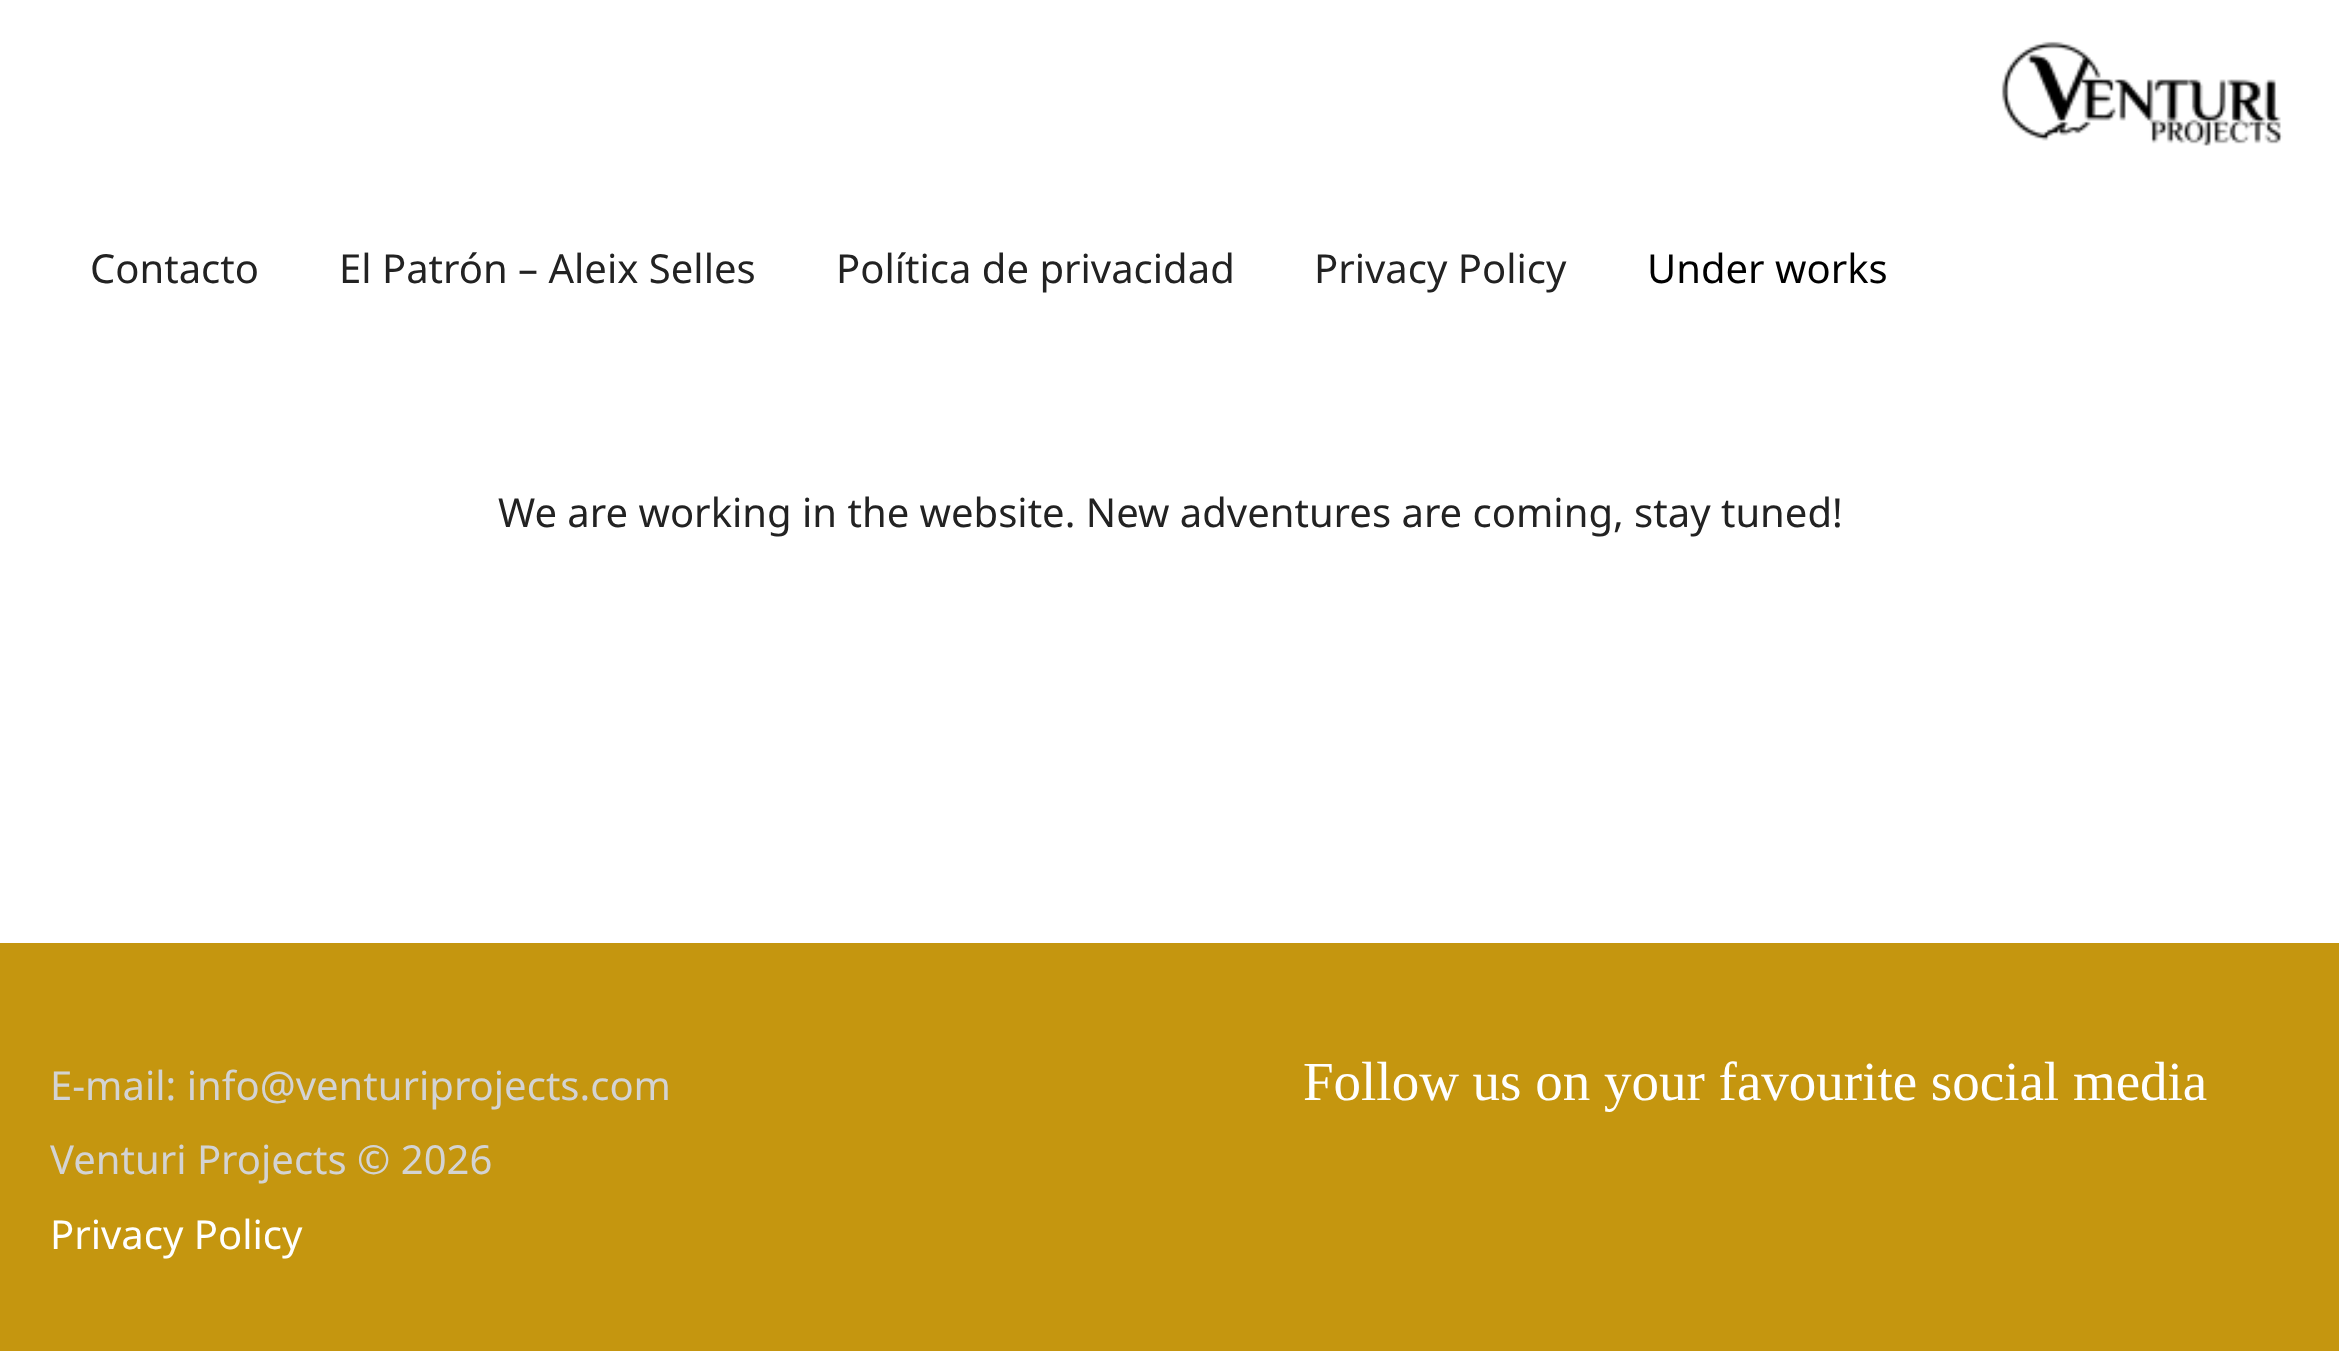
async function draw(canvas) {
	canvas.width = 2339;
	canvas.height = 1351;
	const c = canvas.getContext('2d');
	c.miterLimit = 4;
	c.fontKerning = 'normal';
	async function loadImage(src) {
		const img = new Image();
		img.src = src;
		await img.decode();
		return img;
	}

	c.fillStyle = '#fff';
	c.fillRect(0, 0, 2339, 1351);
	c.drawImage(await loadImage('img1.png'), 2001, 41, 282, 105);
	c.font = '40px Noto Sans';
	c.fillStyle = '#222';
	for (const [text, x, y] of [
		['Contacto', 90, 283],
		['El Patrón – Aleix Selles', 339, 283],
		['Política de privacidad', 836, 283],
		['Privacy Policy', 1314, 283],
	]) {
		c.fillText(text, x, y);
	}
	c.fillStyle = '#000';
	c.fillText('Under works', 1647, 283);
	c.fillStyle = '#222';
	c.fillText('We are working in the website. New adventures are coming, stay tuned!', 498, 527);
	c.fillStyle = '#c5960f';
	c.fillRect(0, 943, 2339, 408);
	c.fillStyle = '#d3d3d3';
	c.fillText('E-mail: info@venturiprojects.com', 50, 1100);
	c.fillText('Venturi Projects © 2026', 50, 1174);
	c.fillStyle = '#fff';
	c.fillText('Privacy Policy', 50, 1249);
	c.font = '55px Liberation Serif';
	c.fillText('Follow us on your favourite social media', 1303, 1100);
}

draw(document.querySelector('canvas'));
